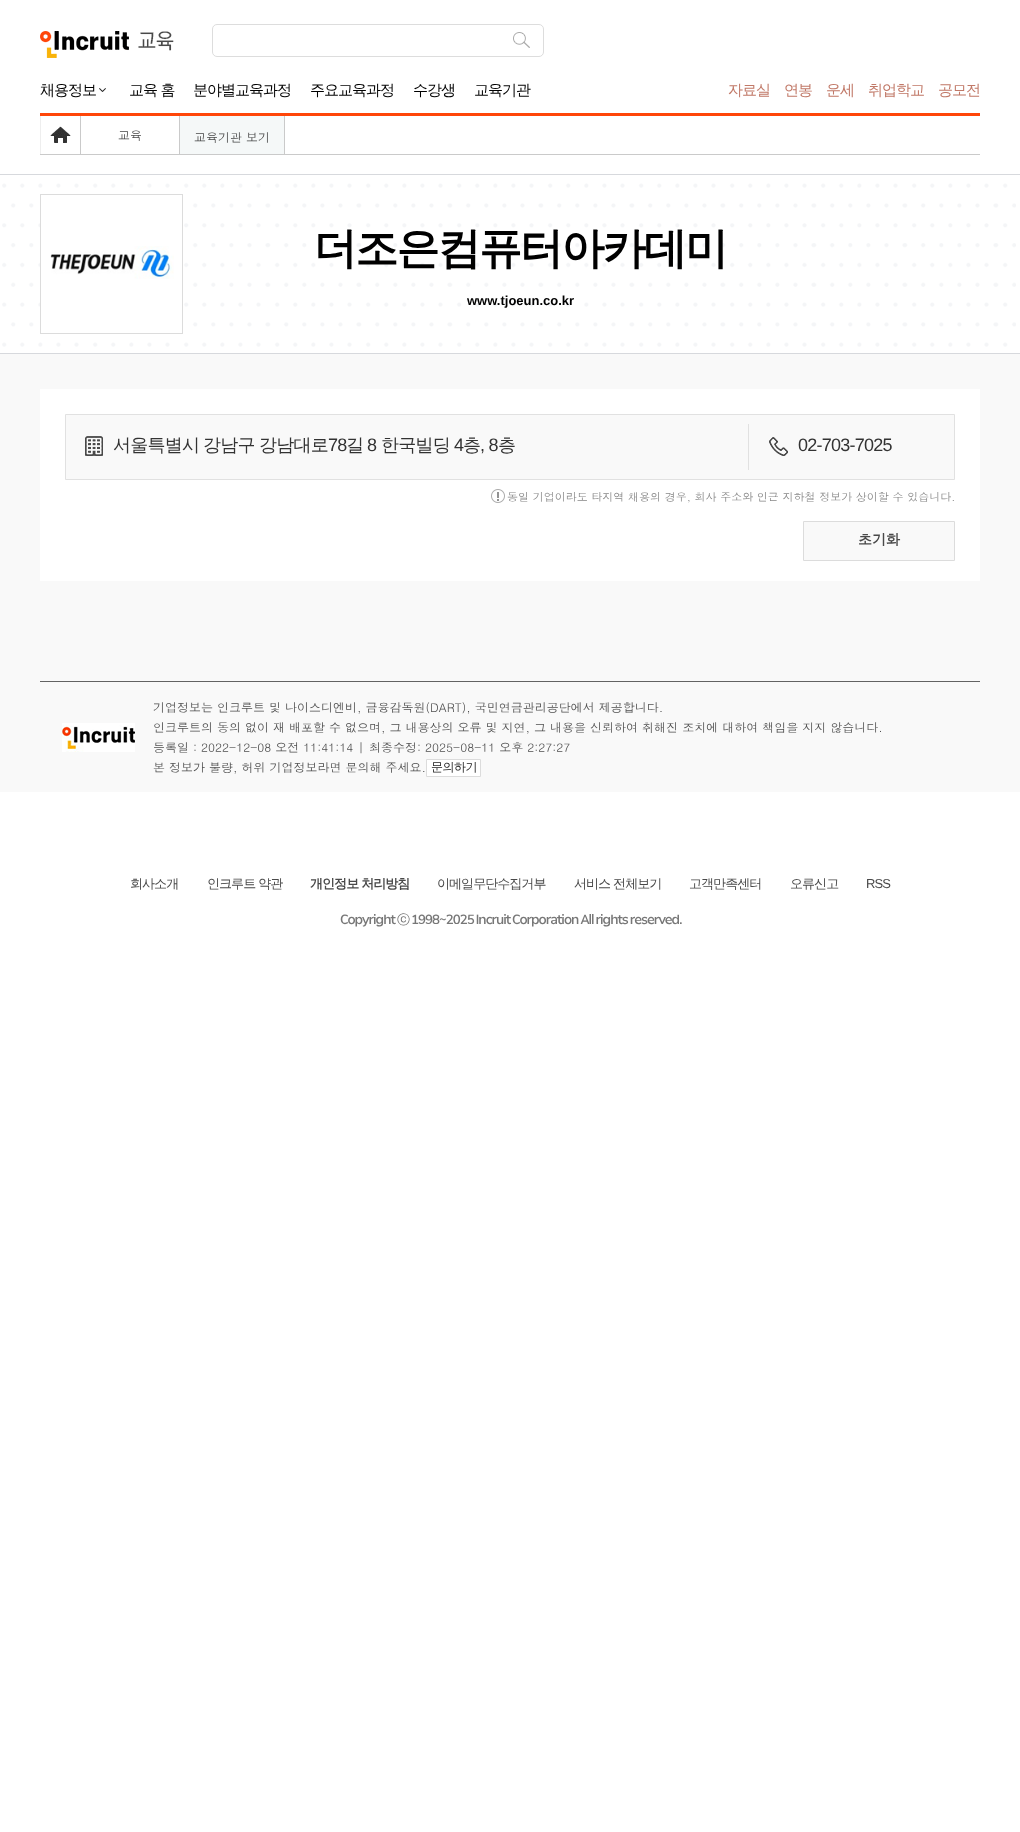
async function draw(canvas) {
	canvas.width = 1020;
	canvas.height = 1832;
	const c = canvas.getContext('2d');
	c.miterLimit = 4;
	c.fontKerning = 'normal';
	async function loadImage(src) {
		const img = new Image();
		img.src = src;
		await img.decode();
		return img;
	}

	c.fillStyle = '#fff';
	c.fillRect(0, 0, 1020, 1832);
	c.fillStyle = '#ff4609';
	c.fillRect(40, 113, 940, 3);
	c.drawImage(await loadImage('img1.png'), 40, 31, 89, 27);
	c.drawImage(await loadImage('img2.png'), 138, 31, 36, 20);
	c.beginPath();
	c.roundRect(212.5, 24.5, 331, 32, 4.5);
	c.strokeStyle = '#ddd';
	c.stroke();
	c.drawImage(await loadImage('img3.png'), 513, 32, 17, 16);
	c.drawImage(await loadImage('img4.png'), 99, 88, 7, 4);
	c.letterSpacing = '-1px';
	c.font = '500 15px WenQuanYi Zen Hei';
	c.fillStyle = '#000';
	for (const [text, x, y] of [
		['채용정보', 40, 95],
		['교육 홈', 129, 95],
		['분야별교육과정', 193, 95],
		['주요교육과정', 310, 95],
		['수강생', 413, 95],
		['교육기관', 474, 95],
	]) {
		c.fillText(text, x, y);
	}
	c.fillStyle = '#c17968';
	for (const [text, x, y] of [
		['자료실', 728, 95],
		['연봉', 784, 95],
		['운세', 826, 95],
		['취업학교', 868, 95],
		['공모전', 938, 95],
	]) {
		c.fillText(text, x, y);
	}
	c.drawImage(await loadImage('img5.png'), 40, 116, 31, 38);
	c.fillStyle = '#cacaca';
	c.fillRect(80, 116, 1, 38);
	c.letterSpacing = '0px';
	c.font = '12px Dotum';
	c.fillStyle = '#494949';
	c.fillText('교육', 118, 140);
	c.fillStyle = '#f5f8f8';
	c.fillRect(180, 116, 104, 38);
	c.fillStyle = '#cacaca';
	c.fillRect(179, 116, 1, 38);
	c.fillStyle = '#494949';
	c.fillText('교육기관 보기', 194, 142);
	for (const [x, y, w, h, color] of [
		[284, 116, 1, 38, '#cacaca'],
		[40, 154, 940, 1, '#cacaca'],
		[0, 354, 1020, 438, '#f9f9f9'],
	]) {
		c.fillStyle = color;
		c.fillRect(x, y, w, h);
	}
	c.drawImage(await loadImage('img6.png'), 2, 183, 1014, 164);
	for (const [x, y, w, h, color] of [
		[0, 174, 1020, 1, '#d7d9dd'],
		[0, 353, 1020, 1, '#d7d9dd'],
		[41, 203, 139, 124, '#fff'],
	]) {
		c.fillStyle = color;
		c.fillRect(x, y, w, h);
	}
	c.strokeStyle = '#dcdcdc';
	c.strokeRect(40.5, 194.5, 142, 139);
	c.drawImage(await loadImage('img7.png'), 50, 246, 124, 33);
	c.letterSpacing = '-1.75px';
	c.font = 'bold 43px WenQuanYi Zen Hei';
	c.fillStyle = '#000';
	c.fillText('더조은컴퓨터아카데미', 314, 263);
	c.letterSpacing = '0px';
	c.font = 'bold 13px Liberation Sans';
	c.fillText('www.tjoeun.co.kr', 467, 305);
	c.fillStyle = '#fff';
	c.fillRect(40, 389, 940, 192);
	c.fillStyle = '#f9f9f9';
	c.beginPath();
	c.rect(65.5, 414.5, 889, 65);
	c.fill();
	c.strokeStyle = '#e1e1e1';
	c.stroke();
	c.drawImage(await loadImage('img8.png'), 85, 436, 18, 20);
	c.fillStyle = '#e1e1e1';
	c.fillRect(748, 424, 1, 46);
	c.letterSpacing = '-0.75px';
	c.font = '500 18px WenQuanYi Zen Hei';
	c.fillStyle = '#333';
	for (const [text, x, y] of [
		['서울특별시', 113, 451],
		['강남구', 203, 451],
		['강남대로', 259, 451],
	]) {
		c.fillText(text, x, y);
	}
	c.font = '18px Liberation Sans';
	c.fillText('78', 328, 451);
	c.font = '500 18px WenQuanYi Zen Hei';
	c.fillText('길', 346, 451);
	c.font = '18px Liberation Sans';
	c.fillText('8', 367, 451);
	c.font = '500 18px WenQuanYi Zen Hei';
	c.fillText('한국빌딩', 381, 451);
	c.font = '18px Liberation Sans';
	c.fillText('4', 454, 451);
	c.font = '500 18px WenQuanYi Zen Hei';
	c.fillText('층', 463, 451);
	c.font = '18px Liberation Sans';
	c.fillText(', 8', 480, 451);
	c.font = '500 18px WenQuanYi Zen Hei';
	c.fillText('층', 498, 451);
	c.drawImage(await loadImage('img9.png'), 769, 437, 19, 19);
	c.font = '18px Liberation Sans';
	c.fillText('02-703-7025', 798, 451);
	c.drawImage(await loadImage('img10.png'), 491, 489, 14, 14);
	c.letterSpacing = '0px';
	c.font = '11px Dotum';
	c.fillStyle = '#888';
	c.fillText('동일 기업이라도 타지역 채용의 경우, 회사 주소와 인근 지하철 정보가 상이할 수 있습니다.', 507, 501);
	c.fillStyle = '#f9f9f9';
	c.beginPath();
	c.rect(803.5, 521.5, 151, 39);
	c.fill();
	c.strokeStyle = '#dcdcdc';
	c.stroke();
	c.font = 'bold 14px WenQuanYi Zen Hei';
	c.fillStyle = '#494949';
	c.fillText('초기화', 858, 544);
	c.fillStyle = '#636363';
	c.fillRect(40, 681, 940, 1);
	c.drawImage(await loadImage('img11.png'), 62, 723, 73, 29);
	c.font = '12px Dotum';
	c.fillStyle = '#4f4f4f';
	for (const [text, x, y] of [
		['기업정보는 인크루트 및 나이스디엔비, 금융감독원(DART), 국민연금관리공단에서 제공합니다.', 153, 712],
		['인크루트의 동의 없이 재 배포할 수 없으며, 그 내용상의 오류 및 지연, 그 내용을 신뢰하여 취해진 조치에 대하여 책임을 지지 않습니다.', 153, 732],
		['등록일 : 2022-12-08 오전 11:41:14', 153, 752],
		['|', 358, 752],
		['최종수정: 2025-08-11 오후 2:27:27', 369, 752],
		['본 정보가 불량, 허위 기업정보라면 문의해 주세요.', 153, 772],
	]) {
		c.fillText(text, x, y);
	}
	c.fillStyle = '#fff';
	c.beginPath();
	c.rect(426.5, 759.5, 54, 17);
	c.fill();
	c.stroke();
	c.letterSpacing = '-0.5px';
	c.font = '500 12px WenQuanYi Zen Hei';
	c.fillStyle = '#222';
	c.fillText('문의하기', 431, 771);
	c.letterSpacing = '-0.95px';
	c.font = '500 13px WenQuanYi Zen Hei';
	c.fillStyle = '#494949';
	c.fillText('회사소개', 130, 888);
	c.fillText('인크루트 약관', 207, 888);
	c.font = 'bold 13px WenQuanYi Zen Hei';
	c.fillText('개인정보 처리방침', 310, 888);
	c.font = '500 13px WenQuanYi Zen Hei';
	for (const [text, x, y] of [
		['이메일무단수집거부', 437, 888],
		['서비스 전체보기', 574, 888],
		['고객만족센터', 689, 888],
		['오류신고', 790, 888],
	]) {
		c.fillText(text, x, y);
	}
	c.font = '13px Liberation Sans';
	c.fillText('RSS', 866, 888);
	c.font = '500 13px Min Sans';
	c.fillStyle = '#777';
	c.fillText('Copyright', 340, 924);
	c.font = '500 13px WenQuanYi Zen Hei';
	c.fillText('ⓒ', 397, 924);
	c.font = '500 13px Min Sans';
	c.fillText('1998~2025 Incruit Corporation All rights reserved.', 411, 924);
}

draw(document.querySelector('canvas'));
